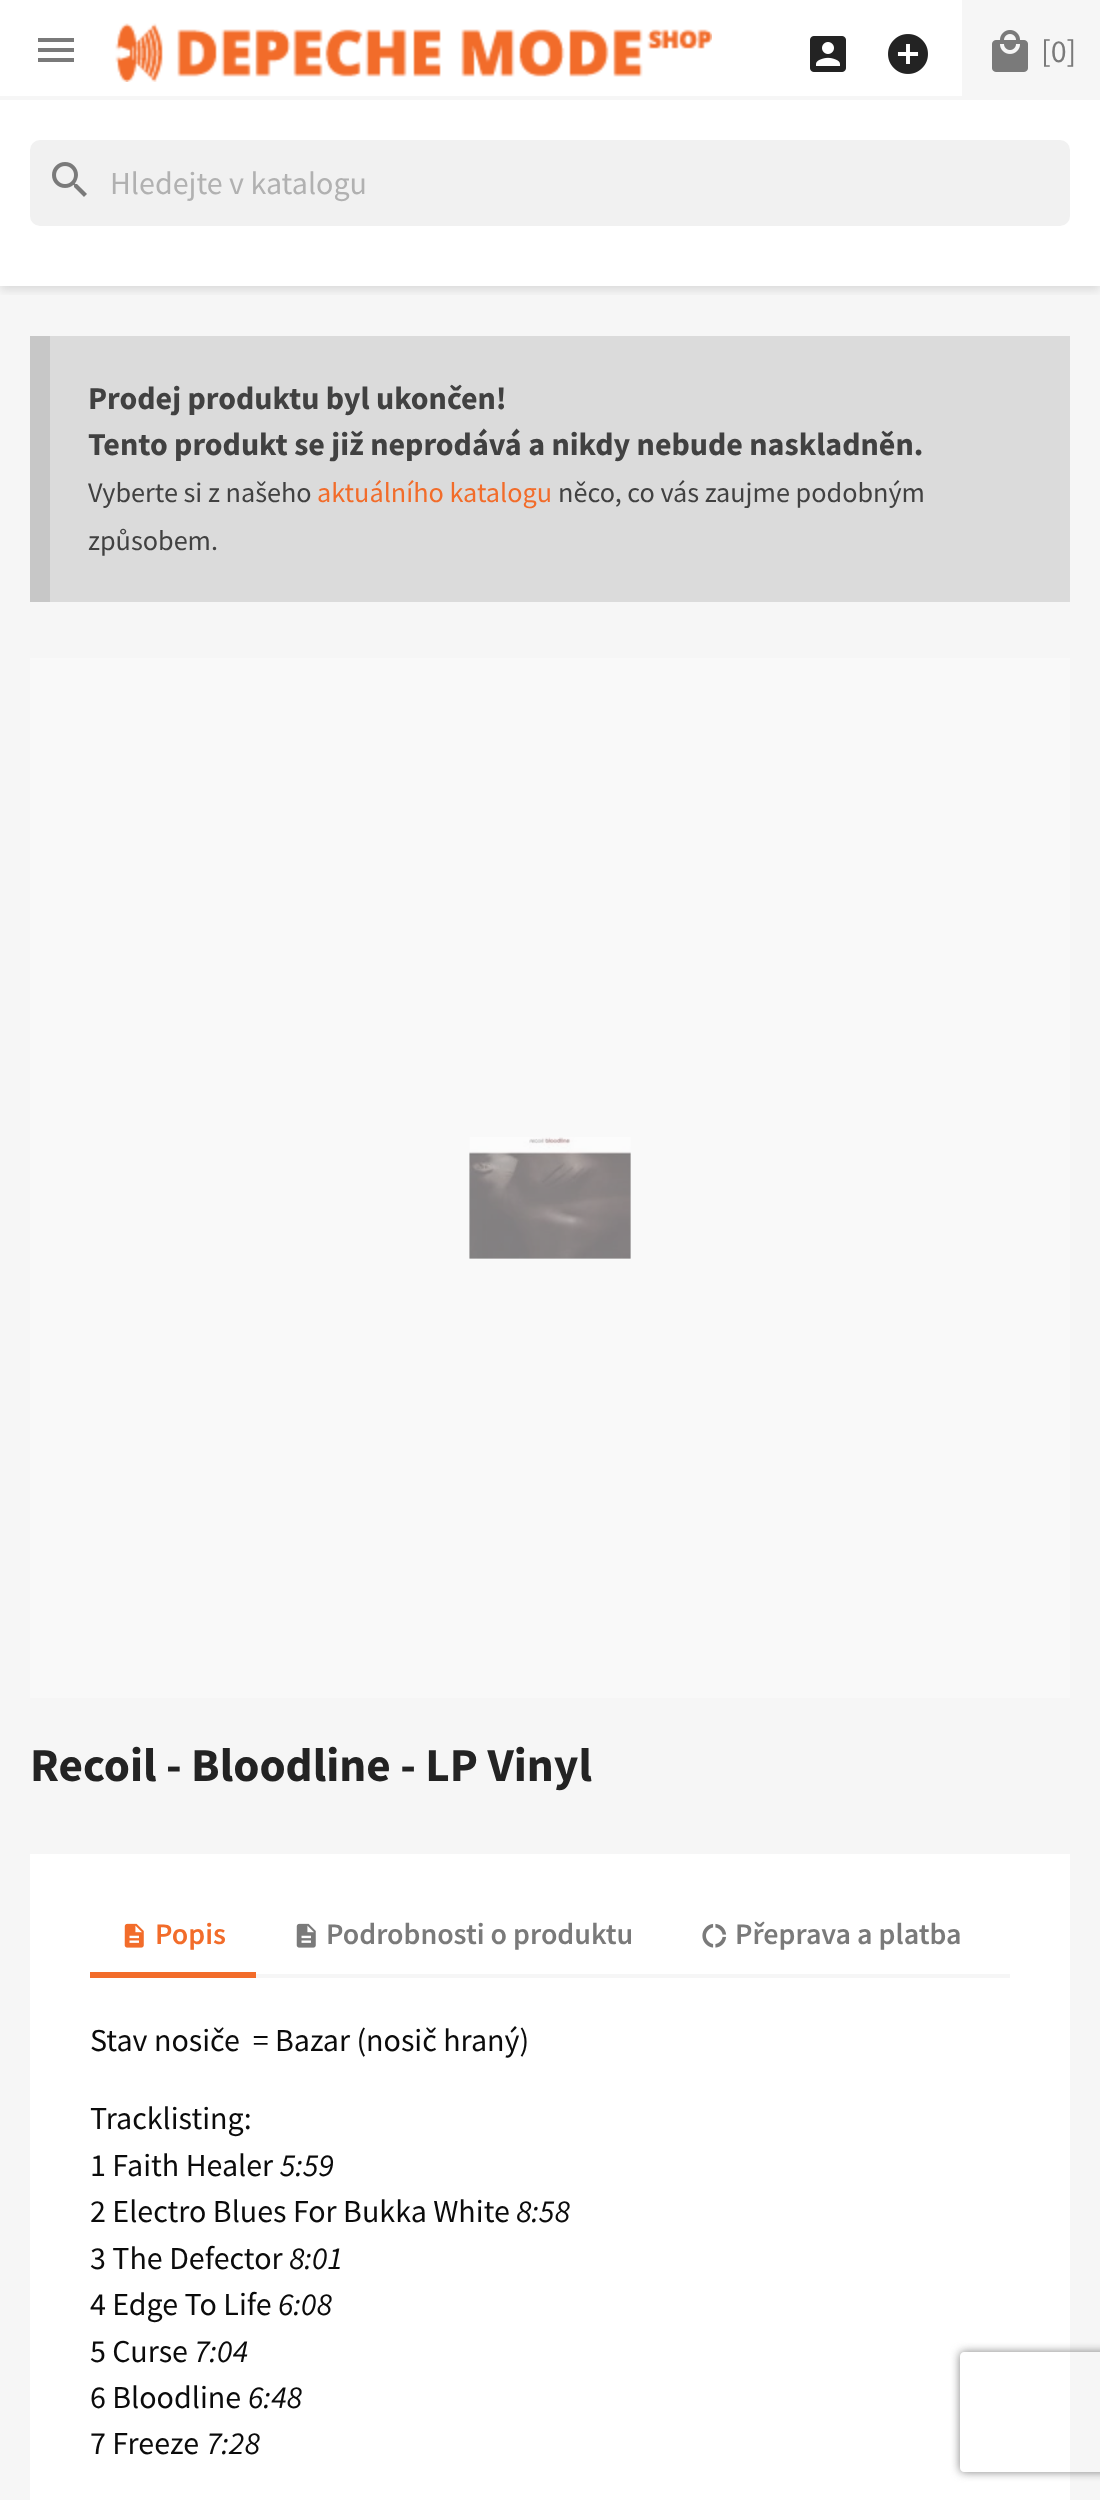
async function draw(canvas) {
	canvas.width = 1100;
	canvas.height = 2500;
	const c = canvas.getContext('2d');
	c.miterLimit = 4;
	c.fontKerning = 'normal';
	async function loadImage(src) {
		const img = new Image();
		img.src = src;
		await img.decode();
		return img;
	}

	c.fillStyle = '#fff';
	c.fillRect(0, 0, 1100, 2500);
	c.fillStyle = '#f6f6f6';
	c.fillRect(0, 286, 1100, 2214);
	c.save();
	c.beginPath();
	c.rect(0, 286, 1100, 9);
	c.clip();
	c.fillStyle = '#0000001c';
	c.filter = 'blur(5px)';
	c.beginPath();
	c.rect(0, 4, 1100, 286);
	c.fill();
	c.filter = 'none';
	c.restore();
	c.fillRect(0, 96, 1100, 4);
	c.fillStyle = '#7a7a7a';
	c.beginPath();
	c.moveTo(38, 38);
	c.lineTo(74, 38);
	c.lineTo(74, 42);
	c.lineTo(38, 42);
	c.closePath();
	c.moveTo(38, 52);
	c.lineTo(38, 48);
	c.lineTo(74, 48);
	c.lineTo(74, 52);
	c.closePath();
	c.moveTo(38, 62);
	c.lineTo(38, 58);
	c.lineTo(74, 58);
	c.lineTo(74, 62);
	c.closePath();
	c.fill();
	c.drawImage(await loadImage('img1.png'), 115, 23, 597, 59);
	c.drawImage(await loadImage('img2.png'), 810, 36, 36, 36);
	c.drawImage(await loadImage('img3.png'), 888, 34, 40, 40);
	c.fillStyle = '#f6f6f6';
	c.fillRect(962, 0, 138, 96);
	c.drawImage(await loadImage('img4.png'), 992, 30, 36, 42);
	c.font = '32px Source Sans Pro';
	c.fillStyle = '#7a7a7a';
	c.fillText('[0]', 1041, 62);
	c.fillStyle = '#f1f1f1';
	c.beginPath();
	c.roundRect(30, 140, 1040, 86, 10);
	c.fill();
	c.drawImage(await loadImage('img5.png'), 52, 162, 35, 35);
	c.fillStyle = '#b1b1b1';
	c.fillText('Hledejte v katalogu', 110, 194);
	c.fillStyle = '#dbdbdb';
	c.fillRect(50, 336, 1020, 266);
	c.fillStyle = '#c7c7c7';
	c.fillRect(30, 336, 20, 266);
	c.font = 'bold 32px Source Sans Pro';
	c.fillStyle = '#414141';
	c.fillText('Prodej produktu byl ukončen!', 88, 409);
	c.fillText('Tento produkt se již neprodává a nikdy nebude naskladněn.', 88, 455);
	c.font = '28.2px Source Sans Pro';
	c.fillText('Vyberte si z našeho', 88, 502);
	c.fillStyle = '#f26c2a';
	c.fillText('aktuálního katalogu', 317, 502);
	c.fillStyle = '#414141';
	c.fillText('něco, co vás zaujme podobným', 558, 502);
	c.fillText('způsobem.', 88, 550);
	c.fillStyle = '#f9f9f9';
	c.fillRect(30, 658, 1040, 1040);
	c.drawImage(await loadImage('img6.png'), 469, 1137, 162, 122);
	c.font = 'bold 47.25px Source Sans Pro';
	c.fillStyle = '#232323';
	c.fillText('Recoil - Bloodline - LP Vinyl', 30, 1781);
	for (const [x, y, w, h, color] of [
		[30, 1854, 1040, 646, '#fff'],
		[256, 1974, 754, 4, '#f6f6f6'],
		[90, 1972, 166, 6, '#f26c2a'],
	]) {
		c.fillStyle = color;
		c.fillRect(x, y, w, h);
	}
	c.drawImage(await loadImage('img7.png'), 124, 1923, 20, 25);
	c.font = '600 30px Source Sans Pro';
	c.fillText('Popis', 155, 1944);
	c.drawImage(await loadImage('img8.png'), 296, 1923, 20, 25);
	c.fillStyle = '#7a7a7a';
	c.fillText('Podrobnosti o produktu', 326, 1944);
	c.drawImage(await loadImage('img9.png'), 702, 1923, 25, 25);
	c.fillText('Přeprava a platba', 735, 1944);
	c.font = '32px Source Sans Pro';
	c.fillStyle = '#0b0b0b';
	for (const [text, x, y] of [
		['Stav nosiče  = Bazar (nosič hraný)', 90, 2051],
		['Tracklisting:', 90, 2129],
		['1 Faith Healer', 90, 2176],
	]) {
		c.fillText(text, x, y);
	}
	c.font = 'italic 32px Source Sans Pro';
	c.fillText('5:59', 280, 2176);
	c.font = '32px Source Sans Pro';
	c.fillText('2 Electro Blues For Bukka White', 90, 2222);
	c.font = 'italic 32px Source Sans Pro';
	c.fillText('8:58', 516, 2222);
	c.font = '32px Source Sans Pro';
	c.fillText('3 The Defector', 90, 2269);
	c.font = 'italic 32px Source Sans Pro';
	c.fillText('8:01', 289, 2269);
	c.font = '32px Source Sans Pro';
	c.fillText('4 Edge To Life', 90, 2315);
	c.font = 'italic 32px Source Sans Pro';
	c.fillText('6:08', 278, 2315);
	c.font = '32px Source Sans Pro';
	c.fillText('5 Curse', 90, 2362);
	c.font = 'italic 32px Source Sans Pro';
	c.fillText('7:04', 194, 2362);
	c.font = '32px Source Sans Pro';
	c.fillText('6 Bloodline', 90, 2408);
	c.font = 'italic 32px Source Sans Pro';
	c.fillText('6:48', 248, 2408);
	c.font = '32px Source Sans Pro';
	c.fillText('7 Freeze', 90, 2454);
	c.font = 'italic 32px Source Sans Pro';
	c.fillText('7:28', 206, 2454);
	c.save();
	c.beginPath();
	c.moveTo(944, 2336);
	c.lineTo(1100, 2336);
	c.lineTo(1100, 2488);
	c.lineTo(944, 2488);
	c.closePath();
	c.moveTo(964, 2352);
	c.lineTo(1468, 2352);
	c.bezierCurveTo(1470, 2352, 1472, 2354, 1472, 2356);
	c.lineTo(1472, 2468);
	c.bezierCurveTo(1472, 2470, 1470, 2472, 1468, 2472);
	c.lineTo(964, 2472);
	c.bezierCurveTo(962, 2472, 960, 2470, 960, 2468);
	c.lineTo(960, 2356);
	c.bezierCurveTo(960, 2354, 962, 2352, 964, 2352);
	c.closePath();
	c.clip('evenodd');
	c.fillStyle = '#808080';
	c.filter = 'blur(5px)';
	c.beginPath();
	c.roundRect(960, 2352, 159, 120, 4);
	c.fill();
	c.filter = 'none';
	c.restore();
}

draw(document.querySelector('canvas'));
